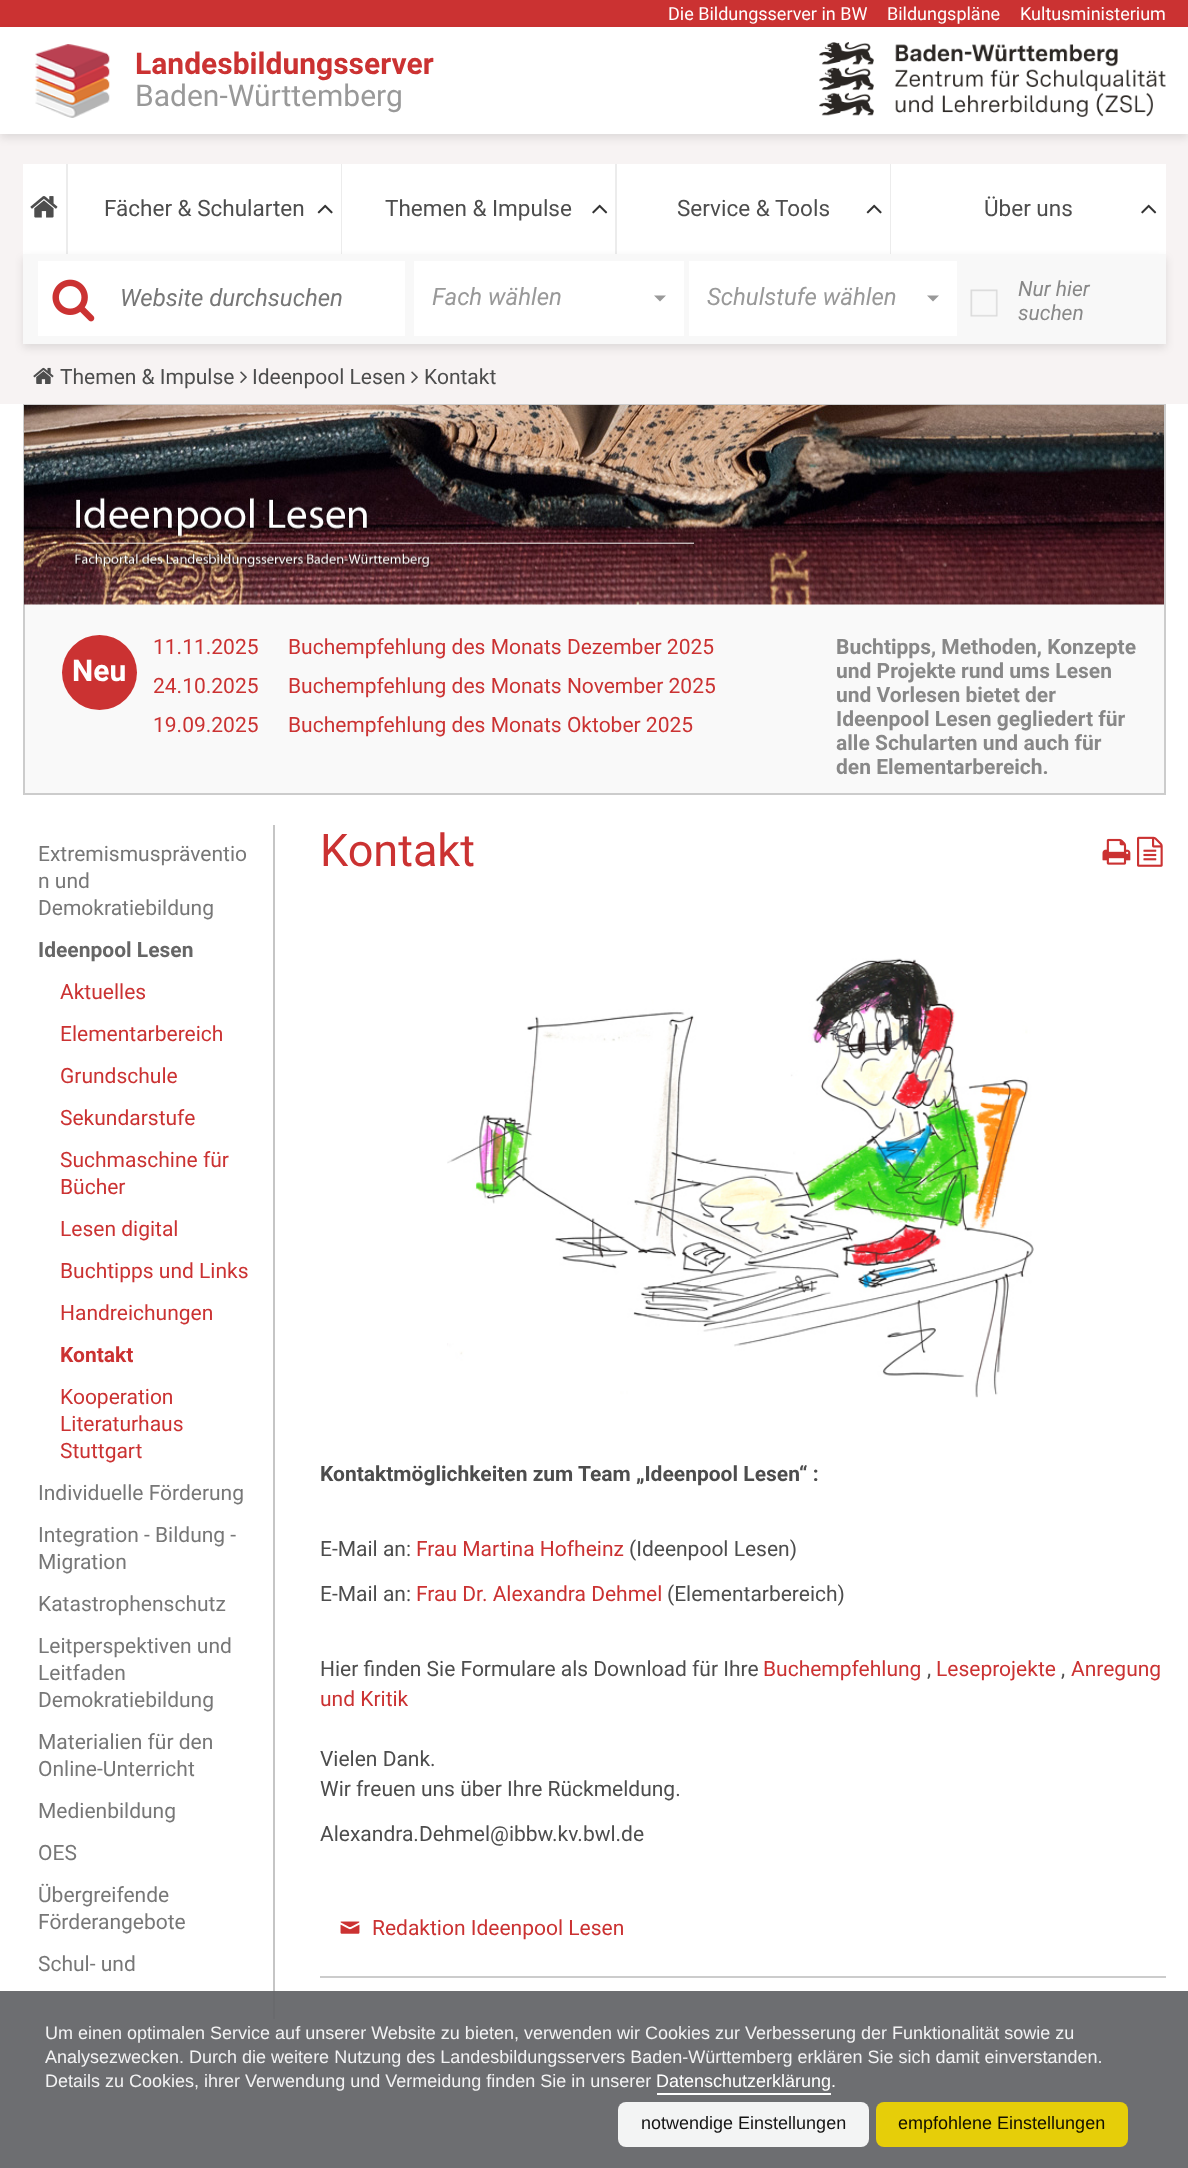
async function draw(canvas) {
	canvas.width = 1188;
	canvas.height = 2168;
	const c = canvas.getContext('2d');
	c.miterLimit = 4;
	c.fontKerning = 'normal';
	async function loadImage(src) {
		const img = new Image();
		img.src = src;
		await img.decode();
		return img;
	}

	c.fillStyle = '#f7f3f3';
	c.fillRect(0, 0, 1188, 2168);
	c.fillStyle = '#cb3232';
	c.fillRect(0, 0, 1188, 27);
	c.fillStyle = '#0000001a';
	c.filter = 'blur(4px)';
	c.beginPath();
	c.rect(0, 32, 1188, 106);
	c.fill();
	c.filter = 'none';
	c.font = '18px Roboto';
	c.fillStyle = '#fff';
	for (const [text, x, y] of [
		['Die Bildungsserver in BW', 668, 20],
		['Bildungspläne', 887, 20],
		['Kultusministerium', 1020, 20],
	]) {
		c.fillText(text, x, y);
	}
	c.fillRect(0, 27, 1188, 107);
	c.drawImage(await loadImage('img1.png'), 35, 44, 75, 74);
	c.font = 'bold 30px Roboto';
	c.fillStyle = '#cb3232';
	c.fillText('Landesbildungsserver', 135, 74);
	c.font = '30px Roboto';
	c.fillStyle = '#999';
	c.fillText('Baden-Württemberg', 135, 106);
	c.drawImage(await loadImage('img2.png'), 819, 42, 347, 75);
	c.fillStyle = '#fff';
	c.fillRect(23, 164, 43, 90);
	c.fillStyle = '#ececec';
	c.fillRect(66, 164, 2, 90);
	c.drawImage(await loadImage('img3.png'), 30, 196, 28, 22);
	c.fillStyle = '#fff';
	c.fillRect(68, 164, 273, 90);
	c.fillStyle = '#ececec';
	c.fillRect(341, 164, 1, 90);
	c.font = '22.5px Roboto';
	c.fillStyle = '#4d4d4d';
	c.fillText('Fächer & Schularten', 104, 216);
	c.drawImage(await loadImage('img4.png'), 317, 204, 16, 10);
	c.fillStyle = '#fff';
	c.fillRect(342, 164, 273, 90);
	c.fillStyle = '#ececec';
	c.fillRect(615, 164, 2, 90);
	c.fillStyle = '#4d4d4d';
	c.fillText('Themen & Impulse', 385, 216);
	c.drawImage(await loadImage('img5.png'), 592, 204, 16, 10);
	c.fillStyle = '#fff';
	c.fillRect(617, 164, 273, 90);
	c.fillStyle = '#ececec';
	c.fillRect(890, 164, 1, 90);
	c.fillStyle = '#4d4d4d';
	c.fillText('Service & Tools', 677, 216);
	c.drawImage(await loadImage('img4.png'), 866, 204, 16, 10);
	c.fillStyle = '#fff';
	c.fillRect(891, 164, 275, 90);
	c.fillStyle = '#4d4d4d';
	c.fillText('Über uns', 984, 216);
	c.drawImage(await loadImage('img5.png'), 1141, 204, 16, 10);
	c.fillStyle = '#0000001a';
	c.filter = 'blur(4px)';
	c.beginPath();
	c.rect(23, 258, 1143, 90);
	c.fill();
	c.filter = 'none';
	c.fillStyle = '#f8f8f8';
	c.fillRect(23, 254, 1143, 90);
	c.fillStyle = '#fff';
	c.fillRect(38, 261, 367, 75);
	c.drawImage(await loadImage('img6.png'), 52, 279, 43, 43);
	c.font = 'italic 24px Roboto';
	c.fillStyle = '#777';
	c.fillText('Website durchsuchen', 120, 306);
	c.fillStyle = '#fff';
	c.fillRect(414, 261, 270, 75);
	c.fillStyle = '#999';
	c.fillText('Fach wählen', 432, 305);
	c.beginPath();
	c.moveTo(654, 295.5);
	c.lineTo(666, 295.5);
	c.lineTo(660, 301.5);
	c.closePath();
	c.fill();
	c.fillStyle = '#fff';
	c.fillRect(689, 261, 268, 75);
	c.fillStyle = '#999';
	c.fillText('Schulstufe wählen', 707, 305);
	c.beginPath();
	c.moveTo(927, 295.5);
	c.lineTo(939, 295.5);
	c.lineTo(933, 301.5);
	c.closePath();
	c.fill();
	c.drawImage(await loadImage('img7.png'), 970, 289, 28, 28);
	c.font = 'italic 21px Roboto';
	c.fillStyle = '#888';
	c.fillText('Nur hier', 1018, 296);
	c.fillText('suchen', 1018, 320);
	c.drawImage(await loadImage('img8.png'), 33, 367, 21, 17);
	c.font = '21px Roboto';
	c.fillStyle = '#4d4d4d';
	c.fillText('Themen & Impulse', 60, 384);
	c.drawImage(await loadImage('img9.png'), 240, 371, 7, 12);
	c.fillText('Ideenpool Lesen', 252, 384);
	c.drawImage(await loadImage('img9.png'), 411, 371, 7, 12);
	c.fillText('Kontakt', 424, 384);
	c.fillStyle = '#fff';
	c.fillRect(0, 404, 1188, 1764);
	c.fillStyle = '#f9f9f9';
	c.fillRect(25, 604, 1139, 189);
	c.strokeStyle = '#ccc';
	c.lineWidth = 2;
	c.strokeRect(24, 405, 1141, 389);
	c.drawImage(await loadImage('img10.png'), 24, 405, 1140, 200);
	c.fillStyle = '#cb3232';
	c.beginPath();
	c.arc(99.5, 672.5, 37.5, 0, 2 * Math.PI);
	c.fill();
	c.font = 'bold 30px Roboto';
	c.fillStyle = '#fff';
	c.fillText('Neu', 72, 681);
	c.font = '21px Roboto';
	c.fillStyle = '#cb3232';
	for (const [text, x, y] of [
		['11.11.2025', 153, 654],
		['Buchempfehlung des Monats Dezember 2025', 288, 654],
		['24.10.2025', 153, 693],
		['Buchempfehlung des Monats November 2025', 288, 693],
		['19.09.2025', 153, 732],
		['Buchempfehlung des Monats Oktober 2025', 288, 732],
	]) {
		c.fillText(text, x, y);
	}
	c.font = 'bold 21px Roboto';
	c.fillStyle = '#888';
	for (const [text, x, y] of [
		['Buchtipps, Methoden, Konzepte', 836, 654],
		['und Projekte rund ums Lesen', 836, 678],
		['und Vorlesen bietet der', 836, 702],
		['Ideenpool Lesen gegliedert für', 836, 726],
		['alle Schularten und auch für', 836, 750],
		['den Elementarbereich.', 836, 774],
	]) {
		c.fillText(text, x, y);
	}
	c.fillStyle = '#c5c5c5';
	c.fillRect(273, 825, 2, 1194);
	c.font = '21px Roboto';
	c.fillStyle = '#777';
	for (const [text, x, y] of [
		['Extremismuspräventio', 38, 861],
		['n und', 38, 888],
		['Demokratiebildung', 38, 915],
	]) {
		c.fillText(text, x, y);
	}
	c.font = 'bold 21px Roboto';
	c.fillStyle = '#666';
	c.fillText('Ideenpool Lesen', 38, 957);
	c.font = '21px Roboto';
	c.fillStyle = '#cb3232';
	for (const [text, x, y] of [
		['Aktuelles', 60, 999],
		['Elementarbereich', 60, 1041],
		['Grundschule', 60, 1083],
		['Sekundarstufe', 60, 1125],
		['Suchmaschine für', 60, 1167],
		['Bücher', 60, 1194],
		['Lesen digital', 60, 1236],
		['Buchtipps und Links', 60, 1278],
		['Handreichungen', 60, 1320],
	]) {
		c.fillText(text, x, y);
	}
	c.font = 'bold 21px Roboto';
	c.fillText('Kontakt', 60, 1362);
	c.font = '21px Roboto';
	for (const [text, x, y] of [
		['Kooperation', 60, 1404],
		['Literaturhaus', 60, 1431],
		['Stuttgart', 60, 1458],
	]) {
		c.fillText(text, x, y);
	}
	c.fillStyle = '#777';
	for (const [text, x, y] of [
		['Individuelle Förderung', 38, 1500],
		['Integration - Bildung -', 38, 1542],
		['Migration', 38, 1569],
		['Katastrophenschutz', 38, 1611],
		['Leitperspektiven und', 38, 1653],
		['Leitfaden', 38, 1680],
		['Demokratiebildung', 38, 1707],
		['Materialien für den', 38, 1749],
		['Online-Unterricht', 38, 1776],
		['Medienbildung', 38, 1818],
		['OES', 38, 1860],
		['Übergreifende', 38, 1902],
		['Förderangebote', 38, 1929],
		['Schul- und', 38, 1971],
	]) {
		c.fillText(text, x, y);
	}
	c.font = '45px Roboto';
	c.fillStyle = '#cb3232';
	c.fillText('Kontakt', 320, 866);
	c.drawImage(await loadImage('img11.png'), 1102, 838, 29, 27);
	c.drawImage(await loadImage('img12.png'), 1137, 836, 26, 31);
	c.drawImage(await loadImage('img13.png'), 447, 958, 587, 440);
	c.font = 'bold 21px Roboto';
	c.fillStyle = '#4d4d4d';
	c.fillText('Kontaktmöglichkeiten zum Team „Ideenpool Lesen“ :', 320, 1481);
	c.font = '21px Roboto';
	c.fillText('E-Mail an:', 320, 1556);
	c.fillStyle = '#cb3232';
	c.fillText('Frau Martina Hofheinz', 416, 1556);
	c.fillStyle = '#4d4d4d';
	c.fillText('(Ideenpool Lesen)', 629, 1556);
	c.fillText('E-Mail an:', 320, 1601);
	c.fillStyle = '#cb3232';
	c.fillText('Frau Dr. Alexandra Dehmel', 416, 1601);
	c.fillStyle = '#4d4d4d';
	c.fillText('(Elementarbereich)', 667, 1601);
	c.fillText('Hier finden Sie Formulare als Download für Ihre', 320, 1676);
	c.fillStyle = '#cb3232';
	c.fillText('Buchempfehlung', 763, 1676);
	c.fillStyle = '#4d4d4d';
	c.fillText(',', 927, 1676);
	c.fillStyle = '#cb3232';
	c.fillText('Leseprojekte', 936, 1676);
	c.fillStyle = '#4d4d4d';
	c.fillText(',', 1061, 1676);
	c.fillStyle = '#cb3232';
	c.fillText('Anregung', 1071, 1676);
	c.fillText('und Kritik', 320, 1706);
	c.fillStyle = '#4d4d4d';
	for (const [text, x, y] of [
		['Vielen Dank.', 320, 1766],
		['Wir freuen uns über Ihre Rückmeldung.', 320, 1796],
		['Alexandra.Dehmel@ibbw.kv.bwl.de', 320, 1841],
	]) {
		c.fillText(text, x, y);
	}
	c.drawImage(await loadImage('img14.png'), 340, 1921, 20, 13);
	c.fillStyle = '#cb3232';
	c.fillText('Redaktion Ideenpool Lesen', 372, 1935);
	c.fillStyle = '#ccc';
	c.fillRect(320, 1976, 846, 2);
	c.fillStyle = '#616265eb';
	c.fillRect(0, 1991, 1188, 177);
	c.font = '18px Liberation Sans';
	c.fillStyle = '#f3f3f4';
	for (const [text, x, y] of [
		['Um einen optimalen Service auf unserer Website zu bieten, verwenden wir Cookies zur Verbesserung der Funktionalität sowie zu', 45, 2039],
		['Analysezwecken. Durch die weitere Nutzung des Landesbildungsservers Baden-Württemberg erklären Sie sich damit einverstanden.', 45, 2063],
		['Details zu Cookies, ihrer Verwendung und Vermeidung finden Sie in unserer', 45, 2087],
	]) {
		c.fillText(text, x, y);
	}
	c.fillStyle = '#fff';
	c.fillText('Datenschutzerklärung.', 656, 2087);
	c.fillRect(657, 2093, 174, 2);
	c.fillStyle = '#ffffffeb';
	c.beginPath();
	c.roundRect(618, 2102, 251, 45, 8);
	c.fill();
	c.fillStyle = '#131313';
	c.fillText('notwendige Einstellungen', 641, 2129);
	c.fillStyle = '#f1d600eb';
	c.beginPath();
	c.roundRect(876, 2102, 252, 45, 8);
	c.fill();
	c.fillStyle = '#121001';
	c.fillText('empfohlene Einstellungen', 898, 2129);
}

draw(document.querySelector('canvas'));
